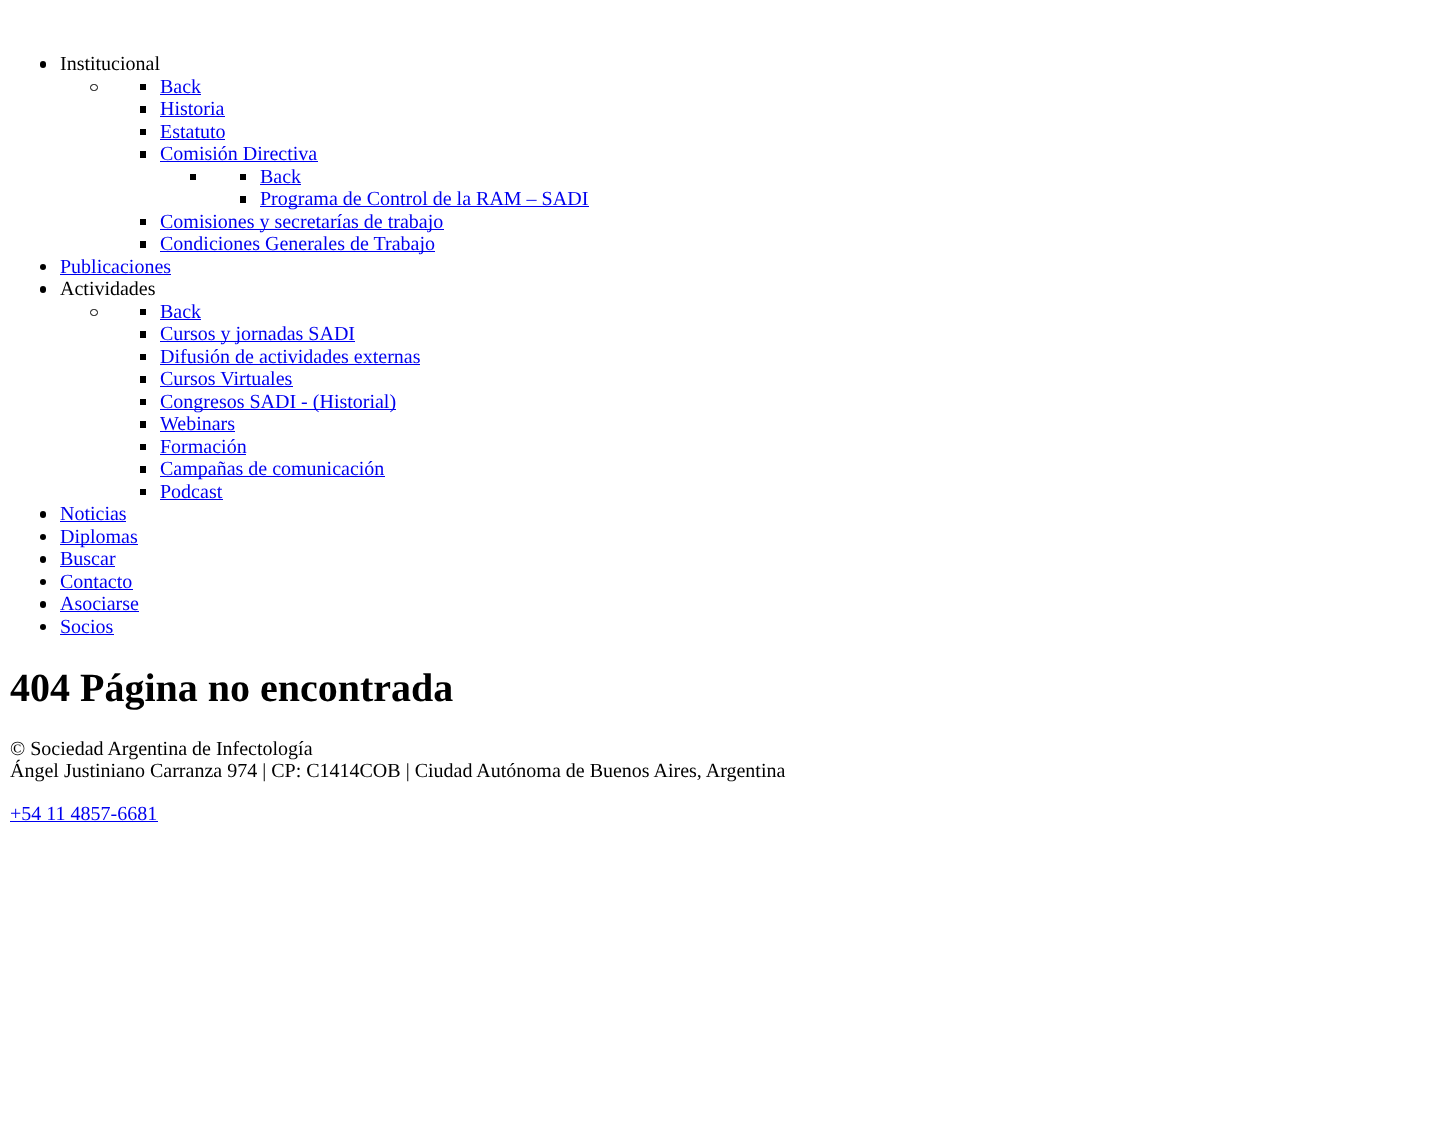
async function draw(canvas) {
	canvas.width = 1444;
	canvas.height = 1123;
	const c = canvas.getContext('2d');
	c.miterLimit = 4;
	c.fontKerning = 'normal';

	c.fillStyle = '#fff';
	c.fillRect(0, 0, 1444, 1123);
	c.fillStyle = '#000';
	c.beginPath();
	c.roundRect(40, 61, 6, 7, 3);
	c.fill();
	c.font = '20px Liberation Serif';
	c.fillText('Institucional', 60, 70);
	c.beginPath();
	c.roundRect(90.5, 84.5, 7, 6, 3);
	c.strokeStyle = '#000';
	c.stroke();
	c.fillRect(140, 84, 6, 6);
	c.fillStyle = '#00e';
	c.fillText('Back', 160, 93);
	c.fillRect(160, 94, 41, 1);
	c.fillStyle = '#000';
	c.fillRect(140, 106, 6, 7);
	c.fillStyle = '#00e';
	c.fillText('Historia', 160, 115);
	c.fillRect(160, 116, 65, 1);
	c.fillStyle = '#000';
	c.fillRect(140, 129, 6, 6);
	c.fillStyle = '#00e';
	c.fillText('Estatuto', 160, 138);
	c.fillRect(160, 139, 65, 1);
	c.fillStyle = '#000';
	c.fillRect(140, 151, 6, 7);
	c.fillStyle = '#00e';
	c.fillText('Comisión Directiva', 160, 160);
	for (const [x, y, w, h, color] of [
		[160, 161, 158, 1, '#00e'],
		[190, 174, 6, 6, '#000'],
		[240, 174, 6, 6, '#000'],
	]) {
		c.fillStyle = color;
		c.fillRect(x, y, w, h);
	}
	c.fillStyle = '#00e';
	c.fillText('Back', 260, 183);
	for (const [x, y, w, h, color] of [
		[260, 184, 41, 1, '#00e'],
		[240, 196, 6, 7, '#000'],
		[260, 206, 329, 1, '#00e'],
	]) {
		c.fillStyle = color;
		c.fillRect(x, y, w, h);
	}
	c.fillText('Programa de Control de la RAM – SADI', 260, 205);
	c.fillStyle = '#000';
	c.fillRect(140, 219, 6, 6);
	c.fillStyle = '#00e';
	c.fillRect(160, 229, 284, 1);
	c.fillText('Comisiones y secretarías de trabajo', 160, 228);
	c.fillStyle = '#000';
	c.fillRect(140, 241, 6, 7);
	c.fillStyle = '#00e';
	c.fillRect(160, 251, 275, 1);
	c.fillText('Condiciones Generales de Trabajo', 160, 250);
	c.fillStyle = '#000';
	c.beginPath();
	c.arc(43, 267, 3, 0, 2 * Math.PI);
	c.fill();
	c.fillStyle = '#00e';
	c.fillText('Publicaciones', 60, 273);
	c.fillRect(60, 274, 111, 1);
	c.fillStyle = '#000';
	c.beginPath();
	c.roundRect(40, 286, 6, 7, 3);
	c.fill();
	c.fillText('Actividades', 60, 295);
	c.beginPath();
	c.roundRect(90.5, 309.5, 7, 6, 3);
	c.stroke();
	c.fillRect(140, 309, 6, 6);
	c.fillStyle = '#00e';
	c.fillText('Back', 160, 318);
	for (const [x, y, w, h, color] of [
		[160, 319, 41, 1, '#00e'],
		[140, 331, 6, 7, '#000'],
		[160, 341, 195, 1, '#00e'],
	]) {
		c.fillStyle = color;
		c.fillRect(x, y, w, h);
	}
	c.fillText('Cursos y jornadas SADI', 160, 340);
	c.fillStyle = '#000';
	c.fillRect(140, 354, 6, 6);
	c.fillStyle = '#00e';
	c.fillText('Difusión de actividades externas', 160, 363);
	c.fillRect(160, 364, 260, 1);
	c.fillStyle = '#000';
	c.fillRect(140, 376, 6, 7);
	c.fillStyle = '#00e';
	c.fillText('Cursos Virtuales', 160, 385);
	for (const [x, y, w, h, color] of [
		[160, 386, 133, 1, '#00e'],
		[140, 399, 6, 6, '#000'],
		[160, 409, 236, 1, '#00e'],
	]) {
		c.fillStyle = color;
		c.fillRect(x, y, w, h);
	}
	c.fillText('Congresos SADI - (Historial)', 160, 408);
	c.fillStyle = '#000';
	c.fillRect(140, 421, 6, 7);
	c.fillStyle = '#00e';
	c.fillText('Webinars', 160, 430);
	c.fillRect(160, 431, 75, 1);
	c.fillStyle = '#000';
	c.fillRect(140, 444, 6, 6);
	c.fillStyle = '#00e';
	c.fillText('Formación', 160, 453);
	for (const [x, y, w, h, color] of [
		[160, 454, 86, 1, '#00e'],
		[140, 466, 6, 7, '#000'],
		[160, 476, 225, 1, '#00e'],
	]) {
		c.fillStyle = color;
		c.fillRect(x, y, w, h);
	}
	c.fillText('Campañas de comunicación', 160, 475);
	c.fillStyle = '#000';
	c.fillRect(140, 489, 6, 6);
	c.fillStyle = '#00e';
	c.fillText('Podcast', 160, 498);
	c.fillRect(160, 499, 63, 1);
	c.fillStyle = '#000';
	c.beginPath();
	c.roundRect(40, 511, 6, 7, 3);
	c.fill();
	c.fillStyle = '#00e';
	c.fillText('Noticias', 60, 520);
	c.fillRect(60, 521, 66, 1);
	c.fillStyle = '#000';
	c.beginPath();
	c.arc(43, 537, 3, 0, 2 * Math.PI);
	c.fill();
	c.fillStyle = '#00e';
	c.fillRect(60, 544, 78, 1);
	c.fillText('Diplomas', 60, 543);
	c.fillStyle = '#000';
	c.beginPath();
	c.roundRect(40, 556, 6, 7, 3);
	c.fill();
	c.fillStyle = '#00e';
	c.fillText('Buscar', 60, 565);
	c.fillRect(60, 566, 55, 1);
	c.fillStyle = '#000';
	c.beginPath();
	c.arc(43, 582, 3, 0, 2 * Math.PI);
	c.fill();
	c.fillStyle = '#00e';
	c.fillText('Contacto', 60, 588);
	c.fillRect(60, 589, 73, 1);
	c.fillStyle = '#000';
	c.beginPath();
	c.roundRect(40, 601, 6, 7, 3);
	c.fill();
	c.fillStyle = '#00e';
	c.fillText('Asociarse', 60, 610);
	c.fillRect(60, 611, 79, 1);
	c.fillStyle = '#000';
	c.beginPath();
	c.arc(43, 627, 3, 0, 2 * Math.PI);
	c.fill();
	c.fillStyle = '#00e';
	c.fillText('Socios', 60, 633);
	c.fillRect(60, 634, 54, 1);
	c.font = 'bold 40px Liberation Serif';
	c.fillStyle = '#000';
	c.fillText('404 Página no encontrada', 10, 701);
	c.font = '20px Liberation Serif';
	c.fillText('© Sociedad Argentina de Infectología', 10, 755);
	c.fillText('Ángel Justiniano Carranza 974 | CP: C1414COB | Ciudad Autónoma de Buenos Aires, Argentina', 10, 777);
	c.fillStyle = '#00e';
	c.fillText('+54 11 4857-6681', 10, 820);
	c.fillRect(10, 821, 148, 1);
}

draw(document.querySelector('canvas'));
